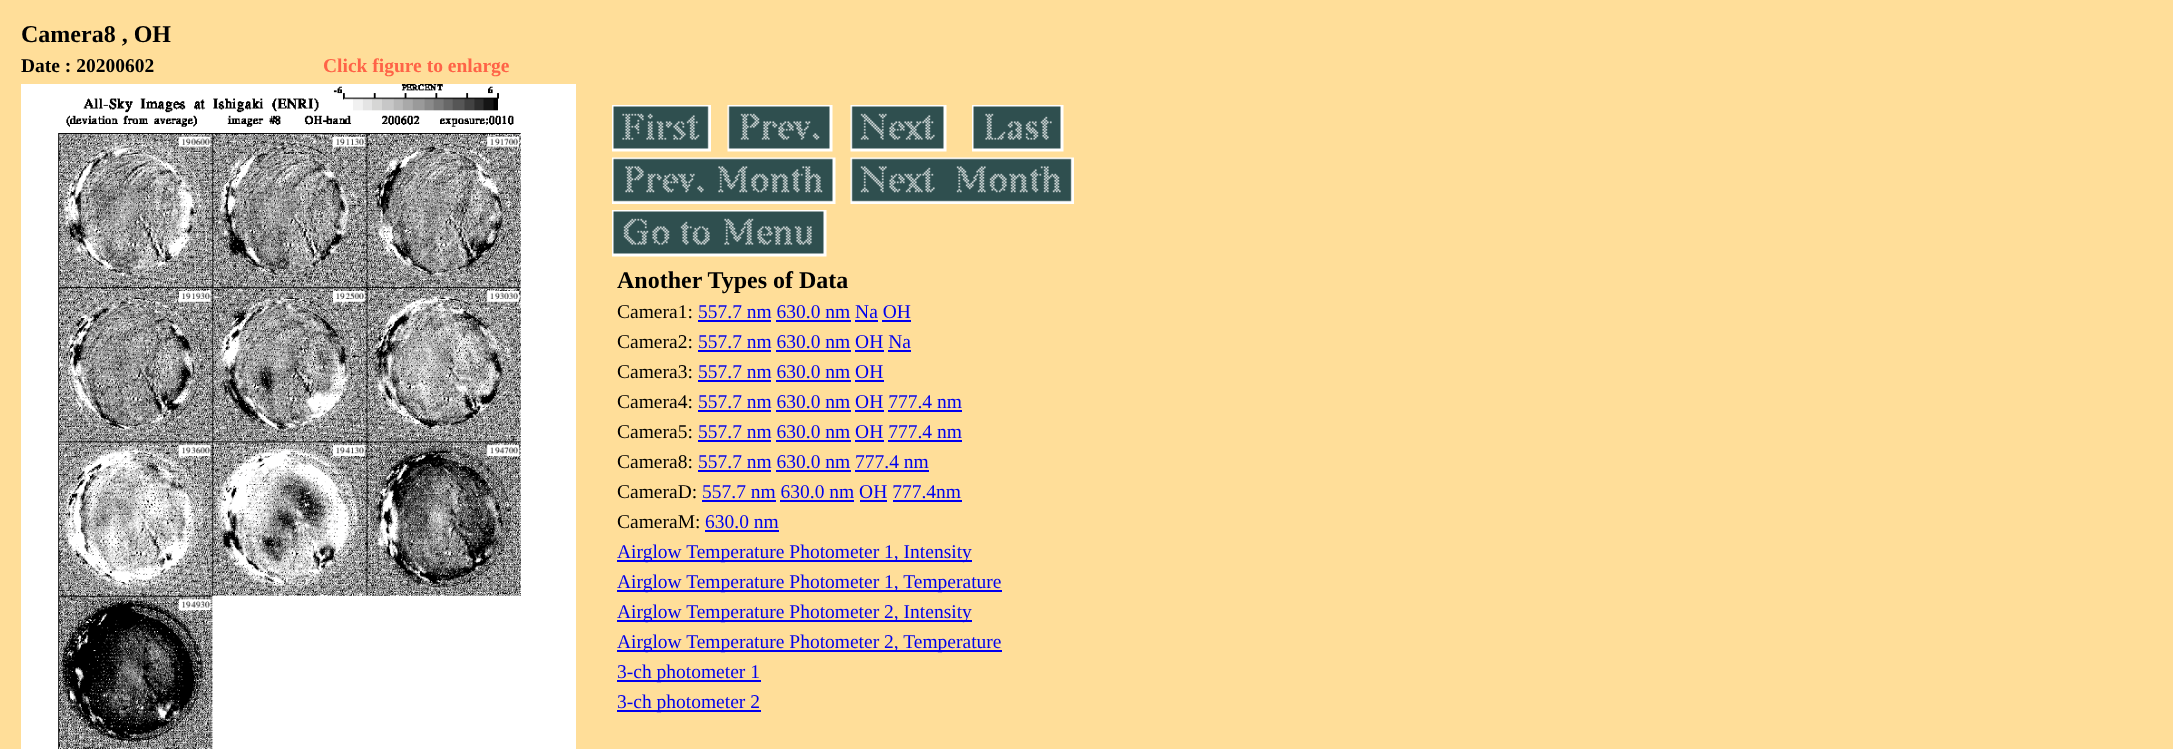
async function draw(canvas) {
	canvas.width = 2173;
	canvas.height = 749;
	const c = canvas.getContext('2d');
	c.miterLimit = 4;
	c.fontKerning = 'normal';
	async function loadImage(src) {
		const img = new Image();
		img.src = src;
		await img.decode();
		return img;
	}

	c.fillStyle = '#ffde99';
	c.fillRect(0, 0, 2173, 749);
	c.font = 'bold 24px Liberation Serif';
	c.fillStyle = '#000';
	c.fillText('Camera8 , OH', 21, 42);
	c.font = 'bold 19.5px Liberation Serif';
	c.fillText('Date : 20200602', 21, 72);
	c.fillStyle = '#ff6347';
	c.fillText('Click figure to enlarge', 323, 72);
	c.drawImage(await loadImage('img1.png'), 21, 84, 555, 665);
	c.drawImage(await loadImage('img2.png'), 612, 105, 99, 47);
	c.drawImage(await loadImage('img3.png'), 727, 105, 106, 47);
	c.drawImage(await loadImage('img4.png'), 850, 105, 97, 47);
	c.drawImage(await loadImage('img5.png'), 972, 105, 92, 47);
	c.drawImage(await loadImage('img6.png'), 612, 157, 224, 47);
	c.drawImage(await loadImage('img7.png'), 850, 157, 224, 47);
	c.drawImage(await loadImage('img8.png'), 612, 210, 215, 47);
	c.font = 'bold 24px Liberation Serif';
	c.fillStyle = '#000';
	c.fillText('Another Types of Data', 617, 288);
	c.font = '19.5px Liberation Serif';
	c.fillText('Camera1:', 617, 318);
	c.fillStyle = '#00e';
	c.fillText('557.7 nm 630.0 nm Na OH', 698, 318);
	for (const [x, y, w, h, color] of [
		[698, 320, 73, 2, '#00e'],
		[776, 320, 75, 2, '#00e'],
		[855, 320, 23, 2, '#00e'],
		[882, 320, 29, 2, '#00e'],
	]) {
		c.fillStyle = color;
		c.fillRect(x, y, w, h);
	}
	c.fillStyle = '#000';
	c.fillText('Camera2:', 617, 348);
	c.fillStyle = '#00e';
	c.fillText('557.7 nm 630.0 nm OH Na', 698, 348);
	for (const [x, y, w, h, color] of [
		[698, 350, 73, 2, '#00e'],
		[776, 350, 75, 2, '#00e'],
		[855, 350, 29, 2, '#00e'],
		[888, 350, 23, 2, '#00e'],
	]) {
		c.fillStyle = color;
		c.fillRect(x, y, w, h);
	}
	c.fillStyle = '#000';
	c.fillText('Camera3:', 617, 378);
	c.fillStyle = '#00e';
	c.fillText('557.7 nm 630.0 nm OH', 698, 378);
	for (const [x, y, w, h, color] of [
		[698, 380, 73, 2, '#00e'],
		[776, 380, 75, 2, '#00e'],
		[855, 380, 29, 2, '#00e'],
	]) {
		c.fillStyle = color;
		c.fillRect(x, y, w, h);
	}
	c.fillStyle = '#000';
	c.fillText('Camera4:', 617, 408);
	c.fillStyle = '#00e';
	c.fillText('557.7 nm 630.0 nm OH 777.4 nm', 698, 408);
	for (const [x, y, w, h, color] of [
		[698, 410, 73, 2, '#00e'],
		[776, 410, 75, 2, '#00e'],
		[855, 410, 29, 2, '#00e'],
		[888, 410, 74, 2, '#00e'],
	]) {
		c.fillStyle = color;
		c.fillRect(x, y, w, h);
	}
	c.fillStyle = '#000';
	c.fillText('Camera5:', 617, 438);
	c.fillStyle = '#00e';
	c.fillText('557.7 nm 630.0 nm OH 777.4 nm', 698, 438);
	for (const [x, y, w, h, color] of [
		[698, 440, 73, 2, '#00e'],
		[776, 440, 75, 2, '#00e'],
		[855, 440, 29, 2, '#00e'],
		[888, 440, 74, 2, '#00e'],
	]) {
		c.fillStyle = color;
		c.fillRect(x, y, w, h);
	}
	c.fillStyle = '#000';
	c.fillText('Camera8:', 617, 468);
	c.fillStyle = '#00e';
	c.fillText('557.7 nm 630.0 nm 777.4 nm', 698, 468);
	for (const [x, y, w, h, color] of [
		[698, 470, 73, 2, '#00e'],
		[776, 470, 75, 2, '#00e'],
		[855, 470, 74, 2, '#00e'],
	]) {
		c.fillStyle = color;
		c.fillRect(x, y, w, h);
	}
	c.fillStyle = '#000';
	c.fillText('CameraD:', 617, 498);
	c.fillStyle = '#00e';
	c.fillText('557.7 nm 630.0 nm OH 777.4nm', 702, 498);
	for (const [x, y, w, h, color] of [
		[702, 500, 74, 2, '#00e'],
		[780, 500, 74, 2, '#00e'],
		[860, 500, 27, 2, '#00e'],
		[893, 500, 69, 2, '#00e'],
	]) {
		c.fillStyle = color;
		c.fillRect(x, y, w, h);
	}
	c.fillStyle = '#000';
	c.fillText('CameraM:', 617, 528);
	c.fillStyle = '#00e';
	c.fillText('630.0 nm', 705, 528);
	c.fillRect(705, 530, 74, 2);
	c.fillRect(617, 560, 355, 2);
	c.fillText('Airglow Temperature Photometer 1, Intensity', 617, 558);
	c.fillRect(617, 590, 385, 2);
	c.fillText('Airglow Temperature Photometer 1, Temperature', 617, 588);
	c.fillRect(617, 620, 355, 2);
	c.fillText('Airglow Temperature Photometer 2, Intensity', 617, 618);
	c.fillRect(617, 650, 385, 2);
	c.fillText('Airglow Temperature Photometer 2, Temperature', 617, 648);
	c.fillRect(617, 680, 144, 2);
	c.fillText('3-ch photometer 1', 617, 678);
	c.fillRect(617, 710, 144, 2);
	c.fillText('3-ch photometer 2', 617, 708);
}

draw(document.querySelector('canvas'));
